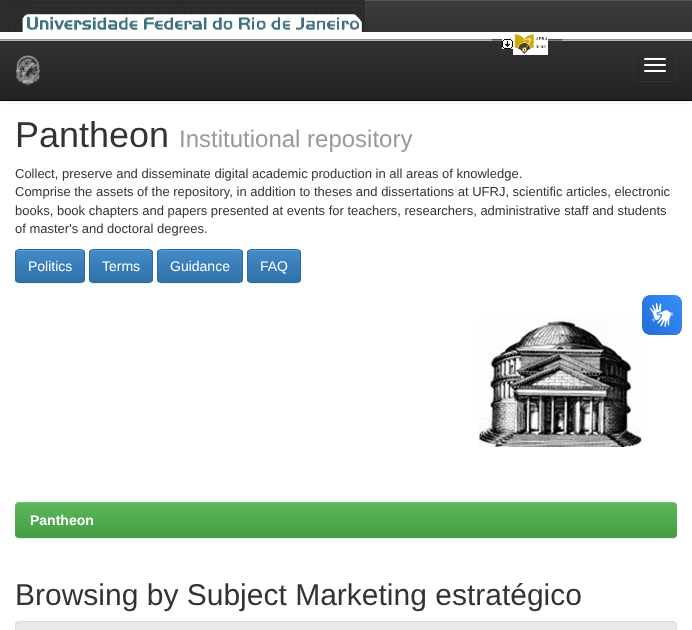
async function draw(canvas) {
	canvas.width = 692;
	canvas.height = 630;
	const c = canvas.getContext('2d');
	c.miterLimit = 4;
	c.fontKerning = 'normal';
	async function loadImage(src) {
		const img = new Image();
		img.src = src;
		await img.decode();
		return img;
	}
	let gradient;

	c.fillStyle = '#fff';
	c.fillRect(0, 0, 692, 630);
	c.fillStyle = '#00000012';
	c.filter = 'blur(2.5px)';
	c.beginPath();
	c.rect(0, 1, 692, 101);
	c.fill();
	c.filter = 'none';
	gradient = c.createLinearGradient(346, 0, 346, 100);
	gradient.addColorStop(0, '#3c3c3c');
	gradient.addColorStop(1, '#222');
	c.fillStyle = gradient;
	c.fillRect(0, 1, 692, 99);
	c.fillStyle = '#595959';
	c.fillRect(365, 0, 327, 1);
	c.fillStyle = '#080808';
	c.fillRect(0, 100, 692, 1);
	c.drawImage(await loadImage('img1.png'), 0, 0, 365, 32);
	c.fillStyle = '#fff';
	c.fillRect(0, 32, 692, 9);
	c.drawImage(await loadImage('img2.png'), 0, 39, 692, 2);
	c.drawImage(await loadImage('img3.png'), 492, 39, 70, 2);
	c.drawImage(await loadImage('img4.png'), 502, 39, 11, 10);
	c.drawImage(await loadImage('img5.png'), 513, 34, 35, 21);
	c.drawImage(await loadImage('img6.png'), 15, 55, 26, 30);
	c.beginPath();
	c.roundRect(633.5, 48.5, 43, 33, 3.5);
	c.strokeStyle = '#333';
	c.stroke();
	c.beginPath();
	c.roundRect(644, 58, 22, 2, 1);
	c.fill();
	c.beginPath();
	c.roundRect(644, 64, 22, 2, 1);
	c.fill();
	c.beginPath();
	c.roundRect(644, 70, 22, 2, 1);
	c.fill();
	c.font = '36px Liberation Sans';
	c.fillStyle = '#333';
	c.fillText('Pantheon', 15, 147);
	c.font = '24px Liberation Sans';
	c.fillStyle = '#999';
	c.fillText('Institutional repository', 179, 147);
	c.font = '13px Liberation Sans';
	c.fillStyle = '#333';
	for (const [text, x, y] of [
		['Collect, preserve and disseminate digital academic production in all areas of knowledge.', 15, 178],
		['Comprise the assets of the repository, in addition to theses and dissertations at UFRJ, scientific articles, electronic', 15, 196],
		['books, book chapters and papers presented at events for teachers, researchers, administrative staff and students', 15, 215],
		['of master\'s and doctoral degrees.', 15, 233],
	]) {
		c.fillText(text, x, y);
	}
	c.fillStyle = '#00000012';
	c.filter = 'blur(0.5px)';
	c.beginPath();
	c.roundRect(15, 250, 70, 34, 4);
	c.fill();
	c.filter = 'none';
	c.save();
	c.beginPath();
	c.roundRect(15, 249, 70, 34, 4);
	c.clip();
	gradient = c.createLinearGradient(50, 250, 50, 282);
	gradient.addColorStop(0, '#428bca');
	gradient.addColorStop(1, '#3071a9');
	c.fillStyle = gradient;
	c.fillRect(15, 250, 70, 32);
	c.restore();
	c.fillStyle = '#5e9cd1';
	c.beginPath();
	c.moveTo(19, 251);
	c.lineTo(81, 251);
	c.bezierCurveTo(83, 251, 84, 252, 84, 254);
	c.bezierCurveTo(84, 247, 75, 250, 71, 250);
	c.lineTo(29, 250);
	c.bezierCurveTo(25, 250, 16, 247, 16, 254);
	c.bezierCurveTo(16, 252, 17, 251, 19, 251);
	c.closePath();
	c.fill();
	c.beginPath();
	c.roundRect(15.5, 249.5, 69, 33, 3.5);
	c.strokeStyle = '#2d6ca2';
	c.stroke();
	c.font = '14px Liberation Sans';
	c.fillStyle = '#fff';
	c.fillText('Politics', 28, 271);
	c.fillStyle = '#00000012';
	c.filter = 'blur(0.5px)';
	c.beginPath();
	c.roundRect(89, 250, 64, 34, 4);
	c.fill();
	c.filter = 'none';
	c.save();
	c.beginPath();
	c.roundRect(89, 249, 64, 34, 4);
	c.clip();
	gradient = c.createLinearGradient(121, 250, 121, 282);
	gradient.addColorStop(0, '#428bca');
	gradient.addColorStop(1, '#3071a9');
	c.fillStyle = gradient;
	c.fillRect(89, 250, 64, 32);
	c.restore();
	c.fillStyle = '#5e9cd1';
	c.beginPath();
	c.moveTo(93, 251);
	c.lineTo(149, 251);
	c.bezierCurveTo(151, 251, 152, 252, 152, 254);
	c.bezierCurveTo(152, 248, 144, 250, 140, 250);
	c.lineTo(102, 250);
	c.bezierCurveTo(98, 250, 90, 248, 90, 254);
	c.bezierCurveTo(90, 252, 91, 251, 93, 251);
	c.closePath();
	c.fill();
	c.beginPath();
	c.roundRect(89.5, 249.5, 63, 33, 3.5);
	c.stroke();
	c.fillStyle = '#fff';
	c.fillText('Terms', 102, 271);
	c.fillStyle = '#00000012';
	c.filter = 'blur(0.5px)';
	c.beginPath();
	c.roundRect(157, 250, 86, 34, 4);
	c.fill();
	c.filter = 'none';
	c.save();
	c.beginPath();
	c.roundRect(157, 249, 86, 34, 4);
	c.clip();
	gradient = c.createLinearGradient(200, 250, 200, 282);
	gradient.addColorStop(0, '#428bca');
	gradient.addColorStop(1, '#3071a9');
	c.fillStyle = gradient;
	c.fillRect(157, 250, 86, 32);
	c.restore();
	c.fillStyle = '#5e9cd1';
	c.beginPath();
	c.moveTo(161, 251);
	c.lineTo(239, 251);
	c.bezierCurveTo(241, 251, 242, 252, 242, 254);
	c.bezierCurveTo(242, 247, 230, 250, 226, 250);
	c.lineTo(174, 250);
	c.bezierCurveTo(170, 250, 158, 247, 158, 254);
	c.bezierCurveTo(158, 252, 159, 251, 161, 251);
	c.closePath();
	c.fill();
	c.beginPath();
	c.roundRect(157.5, 249.5, 85, 33, 3.5);
	c.stroke();
	c.fillStyle = '#fff';
	c.fillText('Guidance', 170, 271);
	c.fillStyle = '#00000012';
	c.filter = 'blur(0.5px)';
	c.beginPath();
	c.roundRect(247, 250, 54, 34, 4);
	c.fill();
	c.filter = 'none';
	c.save();
	c.beginPath();
	c.roundRect(247, 249, 54, 34, 4);
	c.clip();
	gradient = c.createLinearGradient(274, 250, 274, 282);
	gradient.addColorStop(0, '#428bca');
	gradient.addColorStop(1, '#3071a9');
	c.fillStyle = gradient;
	c.fillRect(247, 250, 54, 32);
	c.restore();
	c.fillStyle = '#5e9cd1';
	c.beginPath();
	c.moveTo(251, 251);
	c.lineTo(297, 251);
	c.bezierCurveTo(299, 251, 300, 252, 300, 254);
	c.bezierCurveTo(300, 248, 294, 250, 289, 250);
	c.lineTo(259, 250);
	c.bezierCurveTo(254, 250, 248, 248, 248, 254);
	c.bezierCurveTo(248, 252, 249, 251, 251, 251);
	c.closePath();
	c.fill();
	c.beginPath();
	c.roundRect(247.5, 249.5, 53, 33, 3.5);
	c.stroke();
	c.fillStyle = '#fff';
	c.fillText('FAQ', 260, 271);
	c.drawImage(await loadImage('img7.png'), 478, 318, 164, 129);
	c.fillStyle = '#00000012';
	c.filter = 'blur(0.5px)';
	c.beginPath();
	c.roundRect(15, 503, 662, 36, 4);
	c.fill();
	c.filter = 'none';
	gradient = c.createLinearGradient(346, 502, 346, 538);
	gradient.addColorStop(0, '#5cb85c');
	gradient.addColorStop(1, '#449d44');
	c.fillStyle = gradient;
	c.beginPath();
	c.roundRect(15, 502, 662, 36, 4);
	c.fill();
	c.fillStyle = '#ffffff26';
	c.beginPath();
	c.moveTo(19, 503);
	c.lineTo(673, 503);
	c.bezierCurveTo(675, 503, 677, 505, 677, 507);
	c.bezierCurveTo(677, 504, 676, 502, 673, 502);
	c.lineTo(19, 502);
	c.lineTo(16, 503);
	c.lineTo(15, 504);
	c.lineTo(15, 507);
	c.bezierCurveTo(15, 505, 17, 503, 19, 503);
	c.closePath();
	c.fill();
	c.font = 'bold 14px Liberation Sans';
	c.fillStyle = '#fff';
	c.fillText('Pantheon', 30, 525);
	c.font = '30px Liberation Sans';
	c.fillStyle = '#333';
	c.fillText('Browsing by Subject Marketing estratégico', 15, 605);
	c.save();
	c.beginPath();
	c.roundRect(15, 621, 662, 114, 4);
	c.clip();
	gradient = c.createLinearGradient(346, 622, 346, 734);
	gradient.addColorStop(0, '#e8e8e8');
	gradient.addColorStop(1, '#f5f5f5');
	c.fillStyle = gradient;
	c.fillRect(15, 622, 662, 8);
	c.restore();
	c.beginPath();
	c.roundRect(15.5, 621.5, 661, 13, 3.5);
	c.strokeStyle = '#dcdcdc';
	c.stroke();
	c.drawImage(await loadImage('img8.png'), 642, 295, 40, 40);
	c.drawImage(await loadImage('img9.png'), 642, 295, 40, 40);
}

draw(document.querySelector('canvas'));
